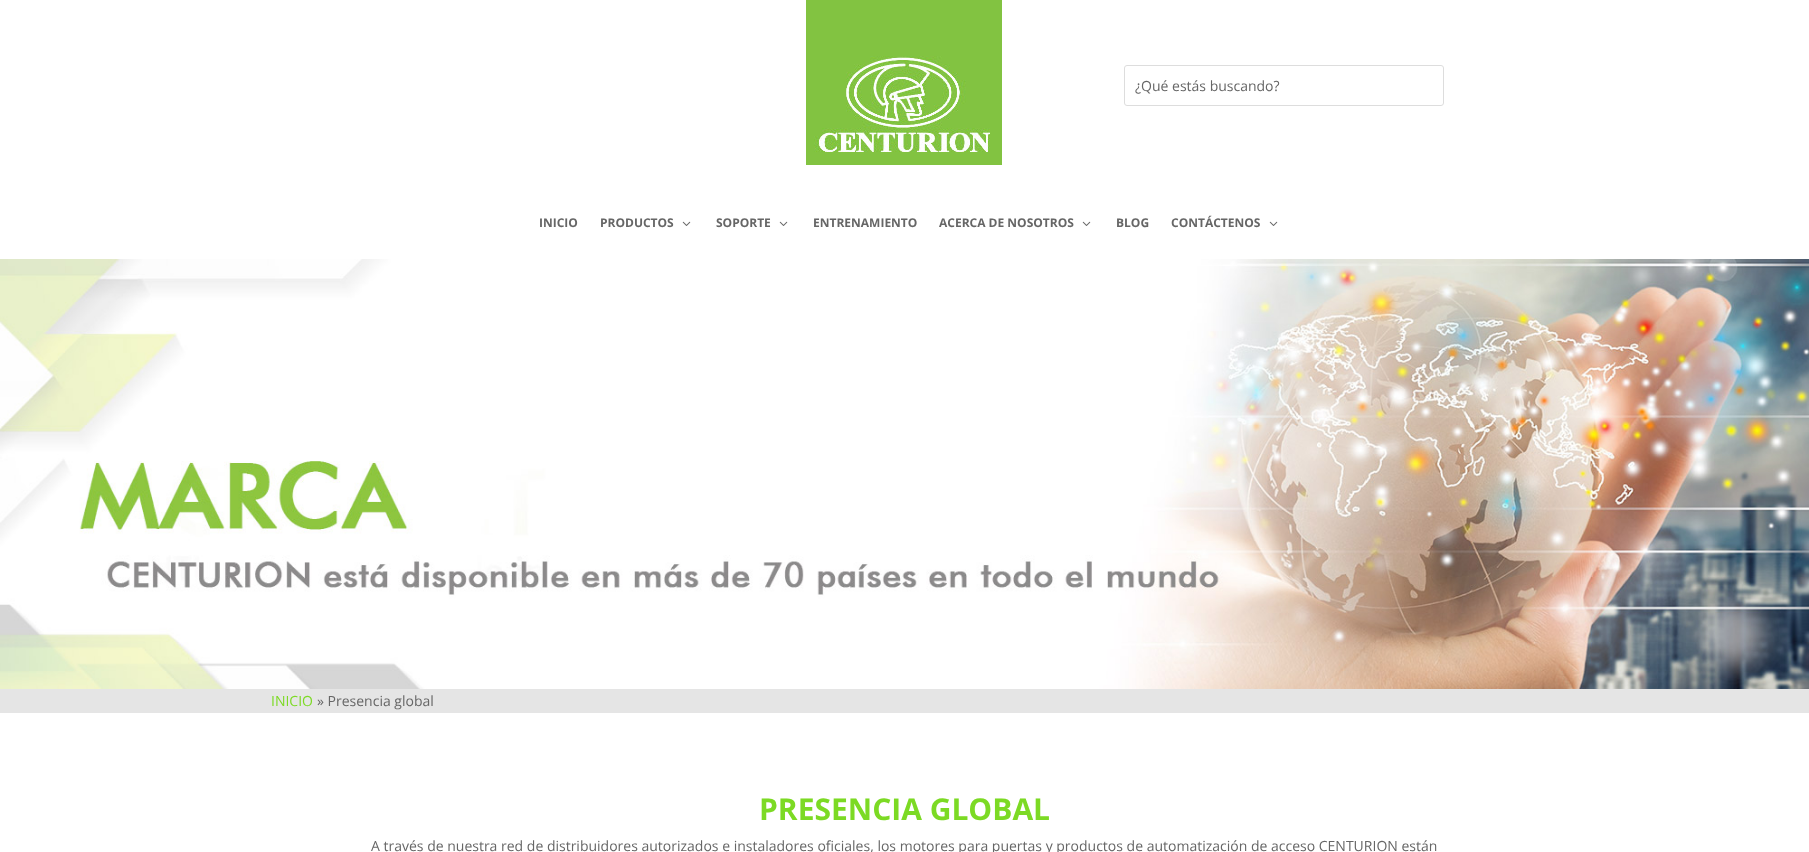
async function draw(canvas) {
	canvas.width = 1809;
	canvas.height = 852;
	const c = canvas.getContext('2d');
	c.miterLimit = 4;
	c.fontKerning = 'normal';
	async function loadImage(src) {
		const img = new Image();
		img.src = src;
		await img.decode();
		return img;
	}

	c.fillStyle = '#fff';
	c.fillRect(0, 0, 1809, 852);
	c.drawImage(await loadImage('img1.png'), 806, 0, 196, 165);
	c.beginPath();
	c.roundRect(1124.5, 65.5, 319, 40, 2.5);
	c.strokeStyle = '#ddd';
	c.stroke();
	c.font = '14px Open Sans';
	c.fillStyle = '#666';
	c.fillText('¿Qué estás buscando?', 1135, 91);
	c.font = 'bold 12px Open Sans';
	c.fillText('INICIO', 539, 227);
	c.fillText('PRODUCTOS', 600, 227);
	c.drawImage(await loadImage('img2.png'), 682, 221, 9, 5);
	c.fillText('SOPORTE', 716, 227);
	c.drawImage(await loadImage('img2.png'), 779, 221, 9, 5);
	c.fillText('ENTRENAMIENTO', 813, 227);
	c.fillText('ACERCA DE NOSOTROS', 939, 227);
	c.drawImage(await loadImage('img2.png'), 1082, 221, 9, 5);
	c.fillText('BLOG', 1116, 227);
	c.fillText('CONTÁCTENOS', 1171, 227);
	c.drawImage(await loadImage('img2.png'), 1269, 221, 9, 5);
	c.drawImage(await loadImage('img3.png'), 0, 259, 1809, 430);
	c.fillStyle = '#e5e5e5';
	c.fillRect(0, 689, 1809, 24);
	c.font = '14px Open Sans';
	c.fillStyle = '#7cda24';
	c.fillText('INICIO', 271, 706);
	c.fillStyle = '#666';
	c.fillText('» Presencia global', 317, 706);
	c.font = 'bold 30px Open Sans';
	c.fillStyle = '#7cda24';
	c.fillText('PRESENCIA GLOBAL', 759, 820);
	c.font = '14px Open Sans';
	c.fillStyle = '#666';
	c.fillText('A través de nuestra red de distribuidores autorizados e instaladores oficiales, los motores para puertas y productos de automatización de acceso CENTURION están', 371, 851);
}

draw(document.querySelector('canvas'));
